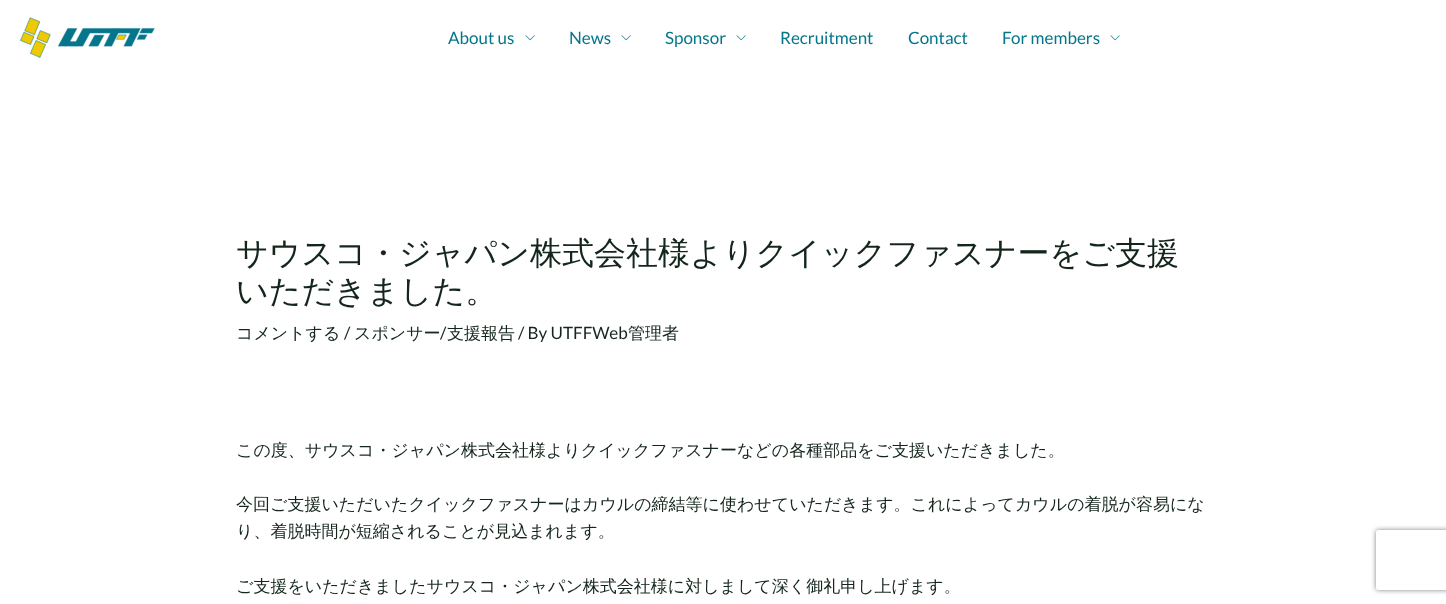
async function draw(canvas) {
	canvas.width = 1446;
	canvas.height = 604;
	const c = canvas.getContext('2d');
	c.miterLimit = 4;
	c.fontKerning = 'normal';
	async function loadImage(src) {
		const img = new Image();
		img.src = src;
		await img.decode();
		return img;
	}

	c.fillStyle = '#fff';
	c.fillRect(0, 0, 1446, 604);
	c.drawImage(await loadImage('img1.png'), 20, 17, 135, 41);
	c.font = '17px Lato';
	c.fillStyle = '#04768b';
	c.fillText('About us', 448, 44);
	c.drawImage(await loadImage('img2.png'), 525, 35, 10, 6);
	c.fillText('News', 569, 44);
	c.drawImage(await loadImage('img2.png'), 621, 35, 10, 6);
	c.fillText('Sponsor', 665, 44);
	c.drawImage(await loadImage('img2.png'), 736, 35, 10, 6);
	for (const [text, x, y] of [
		['Recruitment', 780, 44],
		['Contact', 908, 44],
		['For members', 1002, 44],
	]) {
		c.fillText(text, x, y);
	}
	c.drawImage(await loadImage('img2.png'), 1110, 35, 10, 6);
	c.font = '500 32px WenQuanYi Zen Hei';
	c.fillStyle = '#14261c';
	c.fillText('サウスコ・ジャパン株式会社様よりクイックファスナーをご支援', 236, 264);
	c.fillText('いただきました。', 236, 302);
	c.font = '500 17px WenQuanYi Zen Hei';
	c.fillText('コメントする', 236, 339);
	c.font = '17px Lato';
	c.fillText('/', 344, 339);
	c.font = '500 17px WenQuanYi Zen Hei';
	c.fillText('スポンサー', 354, 339);
	c.font = '17px Lato';
	c.fillText('/', 440, 339);
	c.font = '500 17px WenQuanYi Zen Hei';
	c.fillText('支援報告', 447, 339);
	c.font = '17px Lato';
	c.fillText('/ By UTFFWeb', 518, 339);
	c.font = '500 17px WenQuanYi Zen Hei';
	for (const [text, x, y] of [
		['管理者', 628, 339],
		['この度、サウスコ・ジャパン株式会社様よりクイックファスナーなどの各種部品をご支援いただきました。', 236, 456],
		['今回ご支援いただいたクイックファスナーはカウルの締結等に使わせていただきます。これによってカウルの着脱が容易にな', 236, 510],
		['り、着脱時間が短縮されることが見込まれます。', 236, 537],
		['ご支援をいただきましたサウスコ・ジャパン株式会社様に対しまして深く御礼申し上げます。', 236, 592],
	]) {
		c.fillText(text, x, y);
	}
	c.save();
	c.beginPath();
	c.moveTo(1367, 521);
	c.lineTo(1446, 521);
	c.lineTo(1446, 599);
	c.lineTo(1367, 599);
	c.closePath();
	c.moveTo(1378, 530);
	c.lineTo(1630, 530);
	c.bezierCurveTo(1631, 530, 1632, 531, 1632, 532);
	c.lineTo(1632, 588);
	c.bezierCurveTo(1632, 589, 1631, 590, 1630, 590);
	c.lineTo(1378, 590);
	c.bezierCurveTo(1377, 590, 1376, 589, 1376, 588);
	c.lineTo(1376, 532);
	c.bezierCurveTo(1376, 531, 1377, 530, 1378, 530);
	c.closePath();
	c.clip('evenodd');
	c.fillStyle = '#808080';
	c.filter = 'blur(2.5px)';
	c.beginPath();
	c.roundRect(1376, 530, 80, 60, 2);
	c.fill();
	c.filter = 'none';
	c.restore();
}

draw(document.querySelector('canvas'));
